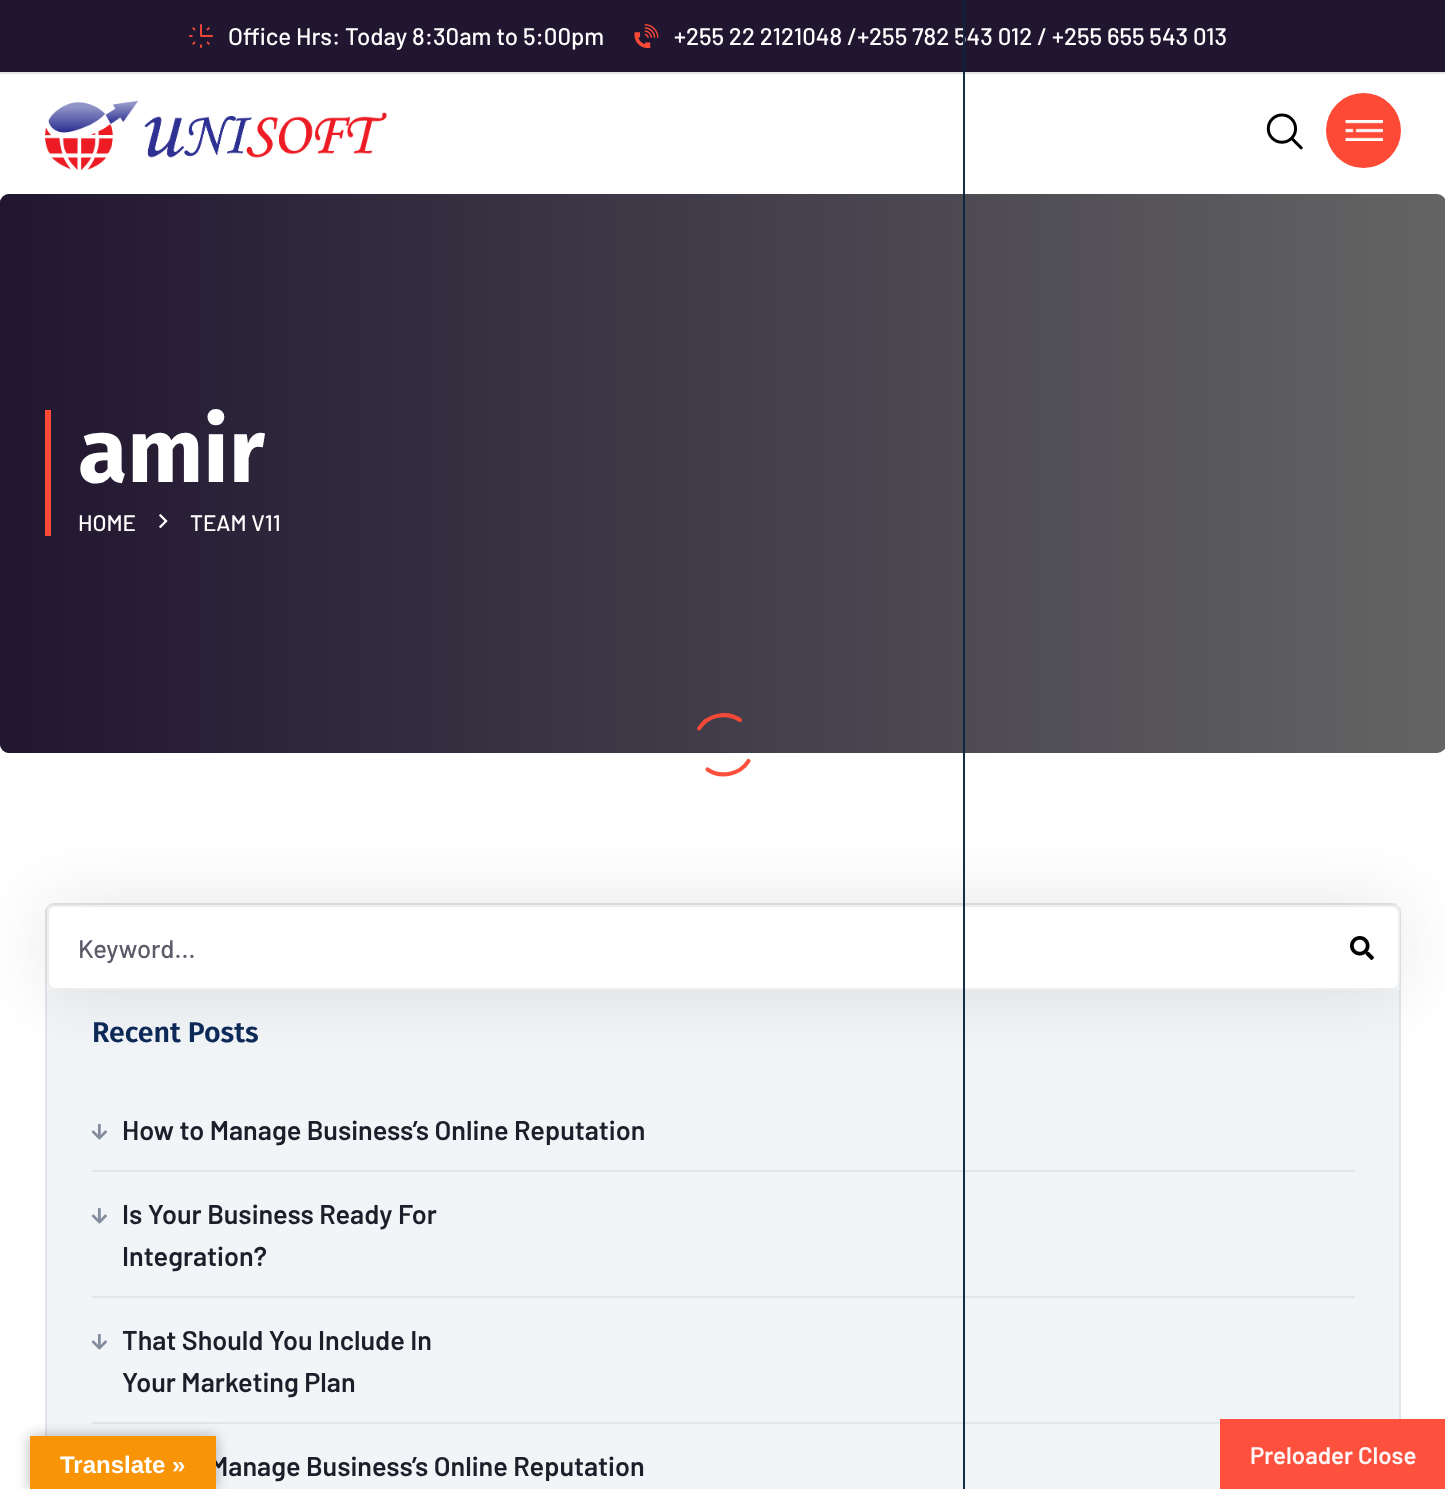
async function draw(canvas) {
	canvas.width = 1445;
	canvas.height = 1489;
	const c = canvas.getContext('2d');
	c.miterLimit = 4;
	c.fontKerning = 'normal';
	async function loadImage(src) {
		const img = new Image();
		img.src = src;
		await img.decode();
		return img;
	}
	let gradient;

	c.fillStyle = '#fff';
	c.fillRect(0, 0, 1445, 1489);
	c.fillStyle = '#201630';
	c.fillRect(0, 0, 1445, 72);
	c.drawImage(await loadImage('img1.png'), 189, 24, 24, 24);
	c.font = '500 24px Barlow';
	c.fillStyle = '#fff';
	c.fillText('Office Hrs: Today 8:30am to 5:00pm', 228, 45);
	c.drawImage(await loadImage('img2.png'), 634, 24, 25, 24);
	c.fillText('+255 22 2121048 /+255 782 543 012 / +255 655 543 013', 674, 45);
	c.fillStyle = '#e5e5e5';
	c.fillRect(0, 72, 1445, 2);
	c.drawImage(await loadImage('img3.png'), 45, 100, 342, 71);
	c.drawImage(await loadImage('img4.png'), 1266, 113, 37, 37);
	c.fillStyle = '#fd4a36';
	c.beginPath();
	c.arc(1363.5, 130.5, 37.5, 0, 2 * Math.PI);
	c.fill();
	c.drawImage(await loadImage('img5.png'), 1345, 120, 38, 21);
	c.fillStyle = '#646464';
	c.beginPath();
	c.roundRect(0, 194, 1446, 559, 9);
	c.fill();
	gradient = c.createLinearGradient(0, 473, 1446, 473);
	gradient.addColorStop(0, '#201630');
	gradient.addColorStop(1, '#20163000');
	c.fillStyle = gradient;
	c.beginPath();
	c.roundRect(0, 194, 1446, 559, 9);
	c.fill();
	c.fillStyle = '#fd4a36';
	c.fillRect(45, 410, 6, 126);
	c.font = 'bold 90px Fira Sans';
	c.fillStyle = '#fff';
	c.fillText('amir', 78, 482);
	c.font = '500 22.5px Barlow';
	c.fillText('HOME', 78, 531);
	c.drawImage(await loadImage('img6.png'), 159, 514, 9, 15);
	c.fillText('TEAM V11', 190, 531);
	c.fillStyle = '#f1f5f8';
	c.beginPath();
	c.roundRect(46, 904, 1354, 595, 8);
	c.fill();
	c.strokeStyle = '#e1e5e9';
	c.lineWidth = 2;
	c.stroke();
	c.save();
	c.beginPath();
	c.moveTo(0, 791);
	c.lineTo(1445, 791);
	c.lineTo(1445, 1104);
	c.lineTo(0, 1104);
	c.closePath();
	c.moveTo(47, 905);
	c.lineTo(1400, 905);
	c.lineTo(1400, 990);
	c.lineTo(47, 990);
	c.closePath();
	c.clip('evenodd');
	c.fillStyle = '#0000001a';
	c.filter = 'blur(37.5px)';
	c.beginPath();
	c.rect(47, 905, 1353, 85);
	c.fill();
	c.filter = 'none';
	c.restore();
	c.fillStyle = '#fff';
	c.beginPath();
	c.roundRect(48, 906, 1351, 83, 7);
	c.fill();
	c.strokeStyle = '#eee';
	c.stroke();
	c.font = '500 25.5px Barlow';
	c.fillStyle = '#5a5a68';
	c.fillText('Keyword...', 78, 958);
	c.drawImage(await loadImage('img7.png'), 1350, 936, 24, 24);
	c.font = '600 28.5px Fira Sans';
	c.fillStyle = '#0c2957';
	c.fillText('Recent Posts', 92, 1042);
	c.fillStyle = '#e1e5e9';
	c.fillRect(92, 1170, 1263, 2);
	c.drawImage(await loadImage('img8.png'), 91, 1123, 16, 17);
	c.font = '600 27px Barlow';
	c.fillStyle = '#1e1e2a';
	c.fillText('How to Manage Business’s Online Reputation', 122, 1140);
	c.fillStyle = '#e1e5e9';
	c.fillRect(92, 1296, 1263, 2);
	c.drawImage(await loadImage('img8.png'), 91, 1207, 16, 17);
	c.fillStyle = '#1e1e2a';
	c.fillText('Is Your Business Ready For', 122, 1224);
	c.fillText('Integration?', 122, 1266);
	c.fillStyle = '#e1e5e9';
	c.fillRect(92, 1422, 1263, 2);
	c.drawImage(await loadImage('img8.png'), 91, 1333, 16, 17);
	c.fillStyle = '#1e1e2a';
	for (const [text, x, y] of [
		['That Should You Include In', 122, 1350],
		['Your Marketing Plan', 122, 1392],
		['Manage Business’s Online Reputation', 209, 1476],
	]) {
		c.fillText(text, x, y);
	}
	c.fillStyle = '#0a273df5';
	c.fillRect(963, 0, 2, 1489);
	c.beginPath();
	c.moveTo(699, 728.5);
	c.bezierCurveTo(707.5, 715, 726.5, 711, 740, 720);
	c.moveTo(748.5, 761);
	c.bezierCurveTo(740, 774.5, 721, 778.5, 707.5, 769.5);
	c.strokeStyle = '#fd4a36f5';
	c.lineWidth = 4.2;
	c.lineCap = 'round';
	c.stroke();
	c.fillStyle = '#fd4a36f5';
	c.fillRect(1220, 1419, 225, 70);
	c.font = '600 24px Barlow';
	c.fillStyle = '#fff7f7';
	c.fillText('Preloader Close', 1250, 1464);
	c.fillStyle = '#0000004d';
	c.filter = 'blur(7px)';
	c.beginPath();
	c.rect(30, 1436, 186, 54);
	c.fill();
	c.filter = 'none';
	c.fillStyle = '#f89406';
	c.fillRect(30, 1436, 186, 53);
	c.font = 'bold 24px Liberation Sans';
	c.fillStyle = '#fff';
	c.fillText('Translate »', 60, 1473);
}

draw(document.querySelector('canvas'));
